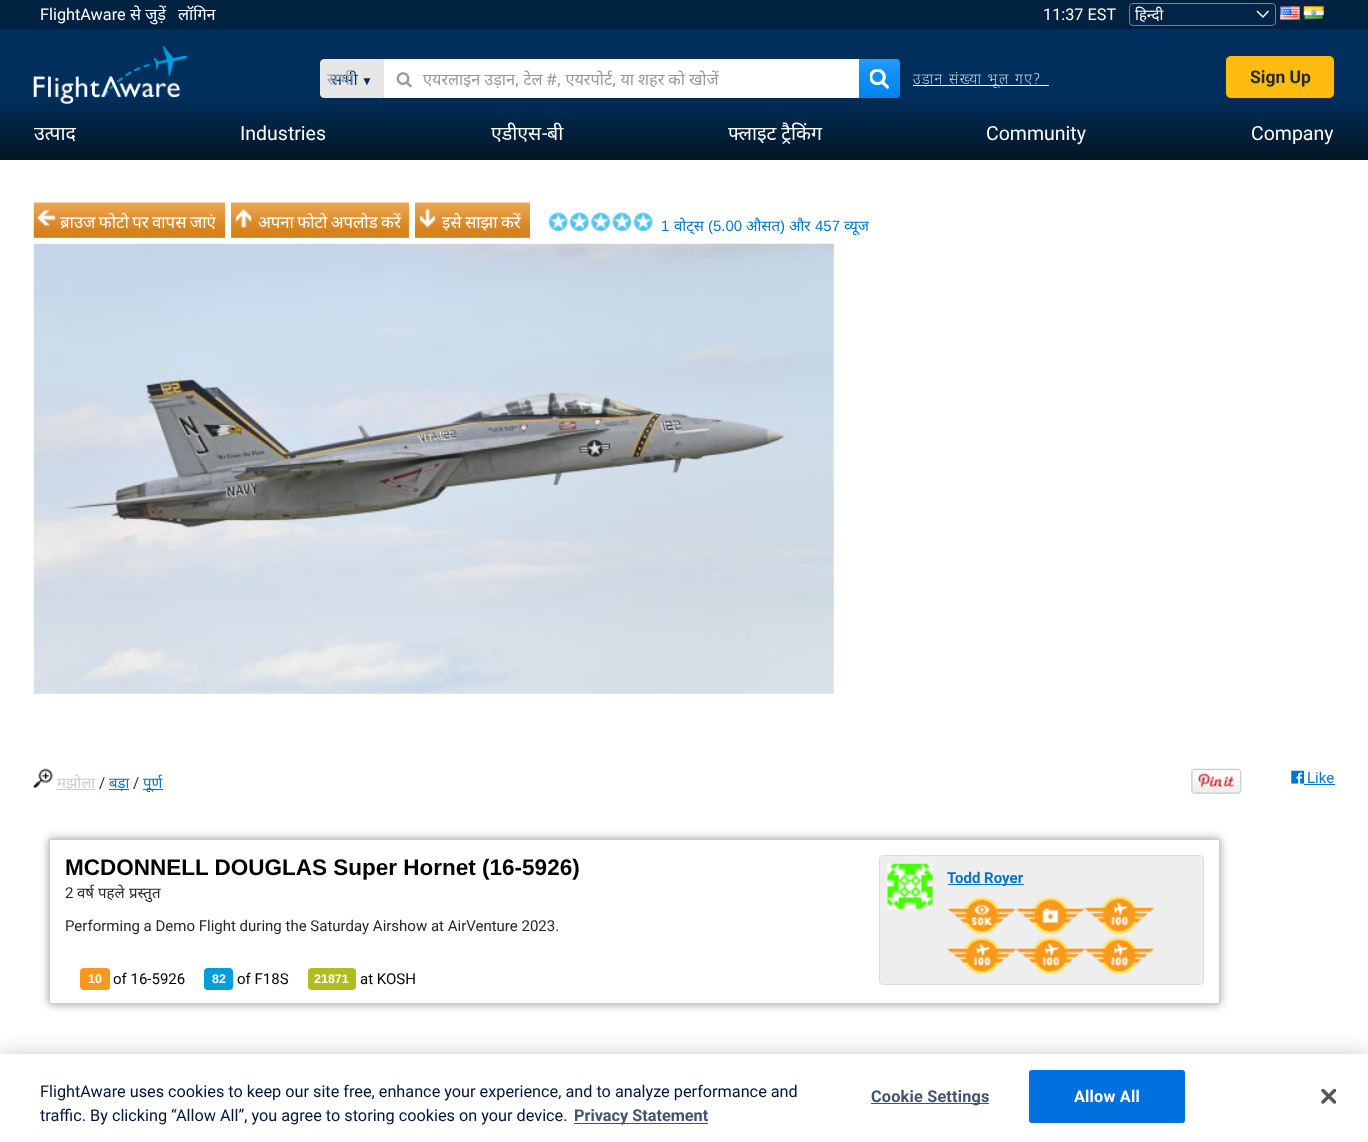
async function draw(canvas) {
	canvas.width = 1368;
	canvas.height = 1142;
	const c = canvas.getContext('2d');
	c.miterLimit = 4;
	c.fontKerning = 'normal';
	async function loadImage(src) {
		const img = new Image();
		img.src = src;
		await img.decode();
		return img;
	}
	let gradient;

	c.fillStyle = '#fff';
	c.fillRect(0, 0, 1368, 1142);
	c.fillStyle = '#888';
	c.filter = 'blur(0.5px)';
	c.beginPath();
	c.rect(1, 3, 1367, 157);
	c.fill();
	c.filter = 'none';
	gradient = c.createLinearGradient(684, 0, 684, 160);
	gradient.addColorStop(0, '#002f5d');
	gradient.addColorStop(0.6, '#002f5d');
	gradient.addColorStop(1, '#021624');
	c.fillStyle = gradient;
	c.fillRect(0, 29, 1368, 131);
	c.fillStyle = '#022241';
	c.fillRect(0, 0, 1368, 29);
	c.font = '16.25px Roboto';
	c.fillStyle = '#fff';
	c.fillText('FlightAware', 40, 20);
	c.font = '16.25px Noto Sans';
	c.fillText('से जुड़ें', 130, 20);
	c.fillText('लॉगिन', 178, 20);
	c.font = '16.25px Roboto';
	c.fillText('11:37 EST', 1043, 20);
	c.fillStyle = '#022547';
	c.beginPath();
	c.roundRect(1129, 3, 147, 23, 4);
	c.fill();
	c.beginPath();
	c.moveTo(1257, 11);
	c.lineTo(1263, 17);
	c.lineTo(1268.5, 11);
	c.strokeStyle = '#fff';
	c.lineWidth = 1.5;
	c.stroke();
	c.beginPath();
	c.roundRect(1129.5, 3.5, 146, 22, 3.5);
	c.strokeStyle = '#808080';
	c.lineWidth = 1;
	c.stroke();
	c.font = '15px Noto Sans';
	c.fillStyle = '#fff';
	c.fillText('हिन्दी', 1135, 20);
	c.drawImage(await loadImage('img1.png'), 1280, 6, 20, 14);
	c.drawImage(await loadImage('img2.png'), 1303, 6, 21, 14);
	c.drawImage(await loadImage('img3.png'), 33, 46, 155, 58);
	c.fillStyle = '#e7e7e7';
	c.beginPath();
	c.roundRect(320.5, 59.5, 63, 38, [3.5, 0, 0, 3.5]);
	c.fill();
	c.strokeStyle = '#e7e7e7';
	c.stroke();
	c.font = '16.25px Noto Sans';
	c.fillStyle = '#002f5d';
	c.fillText('सभी', 331, 85);
	c.font = '16.75px Noto Sans';
	c.fillStyle = '#99a9b9';
	c.fillText('सभी', 327, 85);
	c.font = '12px Liberation Sans';
	c.fillStyle = '#002f5d';
	c.fillText('▼', 361, 85);
	c.fillStyle = '#fff';
	c.fillRect(384, 59, 475, 39);
	c.drawImage(await loadImage('img4.png'), 396, 72, 16, 16);
	c.wordSpacing = '-0.25px';
	c.font = '16.25px Noto Sans';
	c.fillStyle = '#999';
	c.fillText('एयरलाइन उड़ान, टेल #, एयरपोर्ट, या शहर को खोजें', 423, 85);
	gradient = c.createLinearGradient(880, 98, 880, 59);
	gradient.addColorStop(0, '#0084f0');
	gradient.addColorStop(0.66, '#1291f8');
	gradient.addColorStop(1, '#249dff');
	c.fillStyle = gradient;
	c.beginPath();
	c.roundRect(859, 59, 41, 39, [0, 4, 4, 0]);
	c.fill();
	c.drawImage(await loadImage('img5.png'), 870, 69, 19, 20);
	c.fillStyle = '#fff';
	c.fillRect(913, 85, 136, 1);
	c.letterSpacing = '1.5px';
	c.wordSpacing = '0px';
	c.font = '200 15px Noto Sans';
	c.fillText('उड़ान संख्या भूल गए?', 913, 84);
	c.fillStyle = '#febc11';
	c.beginPath();
	c.roundRect(1225.5, 55.5, 109, 43, 5.5);
	c.fill();
	c.strokeStyle = '#272727';
	c.stroke();
	c.letterSpacing = '0px';
	c.font = 'bold 17.5px Roboto';
	c.fillStyle = '#272727';
	c.fillText('Sign Up', 1250, 83);
	c.font = '19.5px Noto Sans';
	c.fillStyle = '#fff';
	c.fillText('उत्पाद', 34, 140);
	c.font = '19.5px Roboto';
	c.fillText('Industries', 240, 140);
	c.font = '19.5px Noto Sans';
	c.fillText('एडीएस', 491, 140);
	c.font = '19.5px Roboto';
	c.fillText('-', 542, 140);
	c.font = '19.5px Noto Sans';
	c.fillText('बी', 547, 140);
	c.wordSpacing = '-0.25px';
	c.fillText('फ्लाइट ट्रैकिंग', 728, 140);
	c.wordSpacing = '0px';
	c.font = '19.5px Roboto';
	c.fillText('Community', 986, 140);
	c.fillText('Company', 1251, 140);
	c.fillStyle = '#eda653';
	c.fillRect(34, 237, 191, 1);
	c.drawImage(await loadImage('img6.png'), 33, 202, 192, 36);
	c.drawImage(await loadImage('img7.png'), 37, 209, 19, 18);
	c.wordSpacing = '-1px';
	c.font = '16.75px Noto Sans';
	c.fillStyle = '#fff';
	c.fillText('ब्राउज फोटो पर वापस जाएं', 60, 228);
	c.fillStyle = '#eda653';
	c.fillRect(231, 203, 178, 35);
	c.drawImage(await loadImage('img8.png'), 231, 202, 178, 36);
	c.drawImage(await loadImage('img9.png'), 235, 208, 17, 20);
	c.fillStyle = '#fff';
	c.fillText('अपना फोटो अपलोड करें', 258, 228);
	c.fillStyle = '#eda653';
	c.fillRect(415, 237, 115, 1);
	c.drawImage(await loadImage('img10.png'), 415, 202, 115, 36);
	c.drawImage(await loadImage('img11.png'), 418, 208, 18, 20);
	c.fillStyle = '#fff';
	c.fillText('इसे साझा करें', 442, 228);
	c.drawImage(await loadImage('img12.png'), 548, 212, 20, 20);
	c.drawImage(await loadImage('img13.png'), 570, 212, 19, 20);
	c.drawImage(await loadImage('img14.png'), 591, 212, 19, 20);
	c.drawImage(await loadImage('img15.png'), 612, 212, 20, 20);
	c.drawImage(await loadImage('img16.png'), 633, 212, 20, 20);
	c.wordSpacing = '0px';
	c.font = '15px Liberation Sans';
	c.fillStyle = '#07c';
	c.fillText('1', 661, 231);
	c.font = '15px Noto Sans';
	c.fillText('वोट्स', 674, 231);
	c.font = '15px Liberation Sans';
	c.fillText('(5.00', 708, 231);
	c.font = '15px Noto Sans';
	c.fillText('औसत', 746, 231);
	c.font = '15px Liberation Sans';
	c.fillText(')', 780, 231);
	c.font = '15px Noto Sans';
	c.fillText('और', 789, 231);
	c.font = '15px Liberation Sans';
	c.fillText('457', 815, 231);
	c.font = '15px Noto Sans';
	c.fillText('व्यूज', 844, 231);
	c.drawImage(await loadImage('img17.png'), 33, 243, 801, 451);
	c.drawImage(await loadImage('img18.png'), 33, 768, 20, 20);
	c.fillStyle = '#ccc';
	c.fillRect(56, 789, 39, 1);
	c.fillText('मझोला', 57, 788);
	c.font = '15px Roboto';
	c.fillStyle = '#272727';
	c.fillText('/', 99, 788);
	c.fillStyle = '#07c';
	c.fillRect(109, 789, 20, 1);
	c.font = '15px Noto Sans';
	c.fillText('बड़ा', 109, 788);
	c.font = '15px Roboto';
	c.fillStyle = '#272727';
	c.fillText('/', 133, 788);
	c.fillStyle = '#07c';
	c.fillRect(143, 789, 20, 1);
	c.font = '15px Noto Sans';
	c.fillText('पूर्ण', 143, 788);
	c.drawImage(await loadImage('img19.png'), 1191, 768, 51, 26);
	c.drawImage(await loadImage('img20.png'), 1291, 770, 14, 14);
	c.font = '15px Roboto';
	c.fillText('Like', 1307, 783);
	c.fillRect(1304, 784, 31, 1);
	c.save();
	c.beginPath();
	c.moveTo(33, 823);
	c.lineTo(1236, 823);
	c.lineTo(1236, 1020);
	c.lineTo(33, 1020);
	c.closePath();
	c.moveTo(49, 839);
	c.lineTo(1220, 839);
	c.lineTo(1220, 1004);
	c.lineTo(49, 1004);
	c.closePath();
	c.clip('evenodd');
	c.fillStyle = '#999';
	c.filter = 'blur(5px)';
	c.beginPath();
	c.rect(49, 839, 1171, 165);
	c.fill();
	c.filter = 'none';
	c.restore();
	c.strokeStyle = '#ccc';
	c.strokeRect(49.5, 839.5, 1170, 164);
	c.font = 'bold 22.5px Liberation Sans';
	c.fillStyle = '#000';
	c.fillText('MCDONNELL DOUGLAS Super Hornet (16-5926)', 65, 875);
	c.font = '15px Roboto';
	c.fillStyle = '#272727';
	c.fillText('2', 65, 898);
	c.font = '15px Noto Sans';
	c.fillText('वर्ष पहले', 77, 898);
	c.fillText('प्रस्तुत', 129, 898);
	c.font = '15px Roboto';
	c.fillText('Performing a Demo Flight during the Saturday Airshow at AirVenture 2023.', 65, 931);
	c.fillStyle = '#f8981d';
	c.beginPath();
	c.roundRect(80, 968, 30, 22, 4);
	c.fill();
	c.font = 'bold 12.5px Liberation Sans';
	c.fillStyle = '#fff';
	c.fillText('10', 88, 983);
	c.font = '15px Roboto';
	c.fillStyle = '#000';
	c.fillText('of 16-5926', 113, 984);
	c.fillStyle = '#009ddc';
	c.beginPath();
	c.roundRect(204, 968, 29, 22, 4);
	c.fill();
	c.font = 'bold 12.5px Liberation Sans';
	c.fillStyle = '#fff';
	c.fillText('82', 212, 983);
	c.font = '15px Roboto';
	c.fillStyle = '#000';
	c.fillText('of F18S', 237, 984);
	c.fillStyle = '#afbd21';
	c.beginPath();
	c.roundRect(308, 968, 48, 22, 4);
	c.fill();
	c.font = 'bold 12.5px Liberation Sans';
	c.fillStyle = '#fff';
	c.fillText('21871', 314, 983);
	c.font = '15px Roboto';
	c.fillStyle = '#000';
	c.fillText('at KOSH', 360, 984);
	c.fillStyle = '#eee';
	c.beginPath();
	c.roundRect(879.5, 855.5, 324, 129, 3.5);
	c.fill();
	c.strokeStyle = '#ddd';
	c.stroke();
	c.drawImage(await loadImage('img21.png'), 887, 863, 46, 46);
	c.fillStyle = '#07c';
	c.fillRect(948, 884, 76, 1);
	c.font = 'bold 15px Roboto';
	c.fillText('Todd Royer', 947, 883);
	c.drawImage(await loadImage('img22.png'), 947, 897, 69, 37);
	c.drawImage(await loadImage('img23.png'), 1016, 897, 69, 37);
	c.drawImage(await loadImage('img24.png'), 1085, 896, 69, 38);
	c.drawImage(await loadImage('img25.png'), 947, 937, 70, 37);
	c.drawImage(await loadImage('img26.png'), 1016, 937, 69, 37);
	c.drawImage(await loadImage('img27.png'), 1085, 937, 69, 37);
	c.fillStyle = '#00000033';
	c.filter = 'blur(11px)';
	c.beginPath();
	c.rect(0, 1054, 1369, 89);
	c.fill();
	c.filter = 'none';
	c.fillStyle = '#fff';
	c.fillRect(0, 1054, 1368, 88);
	c.font = '16.25px Roboto';
	c.fillStyle = '#00153d';
	c.fillText('FlightAware uses cookies to keep our site free, enhance your experience, and to analyze performance and', 40, 1097);
	c.fillText('traffic. By clicking “Allow All”, you agree to storing cookies on your device.', 40, 1121);
	c.fillStyle = '#42526f';
	c.fillRect(574, 1123, 134, 1);
	c.font = 'bold 16.25px Roboto';
	c.fillText('Privacy Statement', 574, 1121);
	c.fillRect(871, 1103, 118, 1);
	c.letterSpacing = '0.2px';
	c.fillText('Cookie Settings', 871, 1102);
	c.fillStyle = '#0070e0';
	c.beginPath();
	c.roundRect(1029.5, 1070.5, 155, 52, 2);
	c.fill();
	c.strokeStyle = '#0070e0';
	c.stroke();
	c.fillStyle = '#fff';
	c.fillText('Allow All', 1074, 1102);
	c.drawImage(await loadImage('img28.png'), 1321, 1089, 15, 15);
}

draw(document.querySelector('canvas'));
